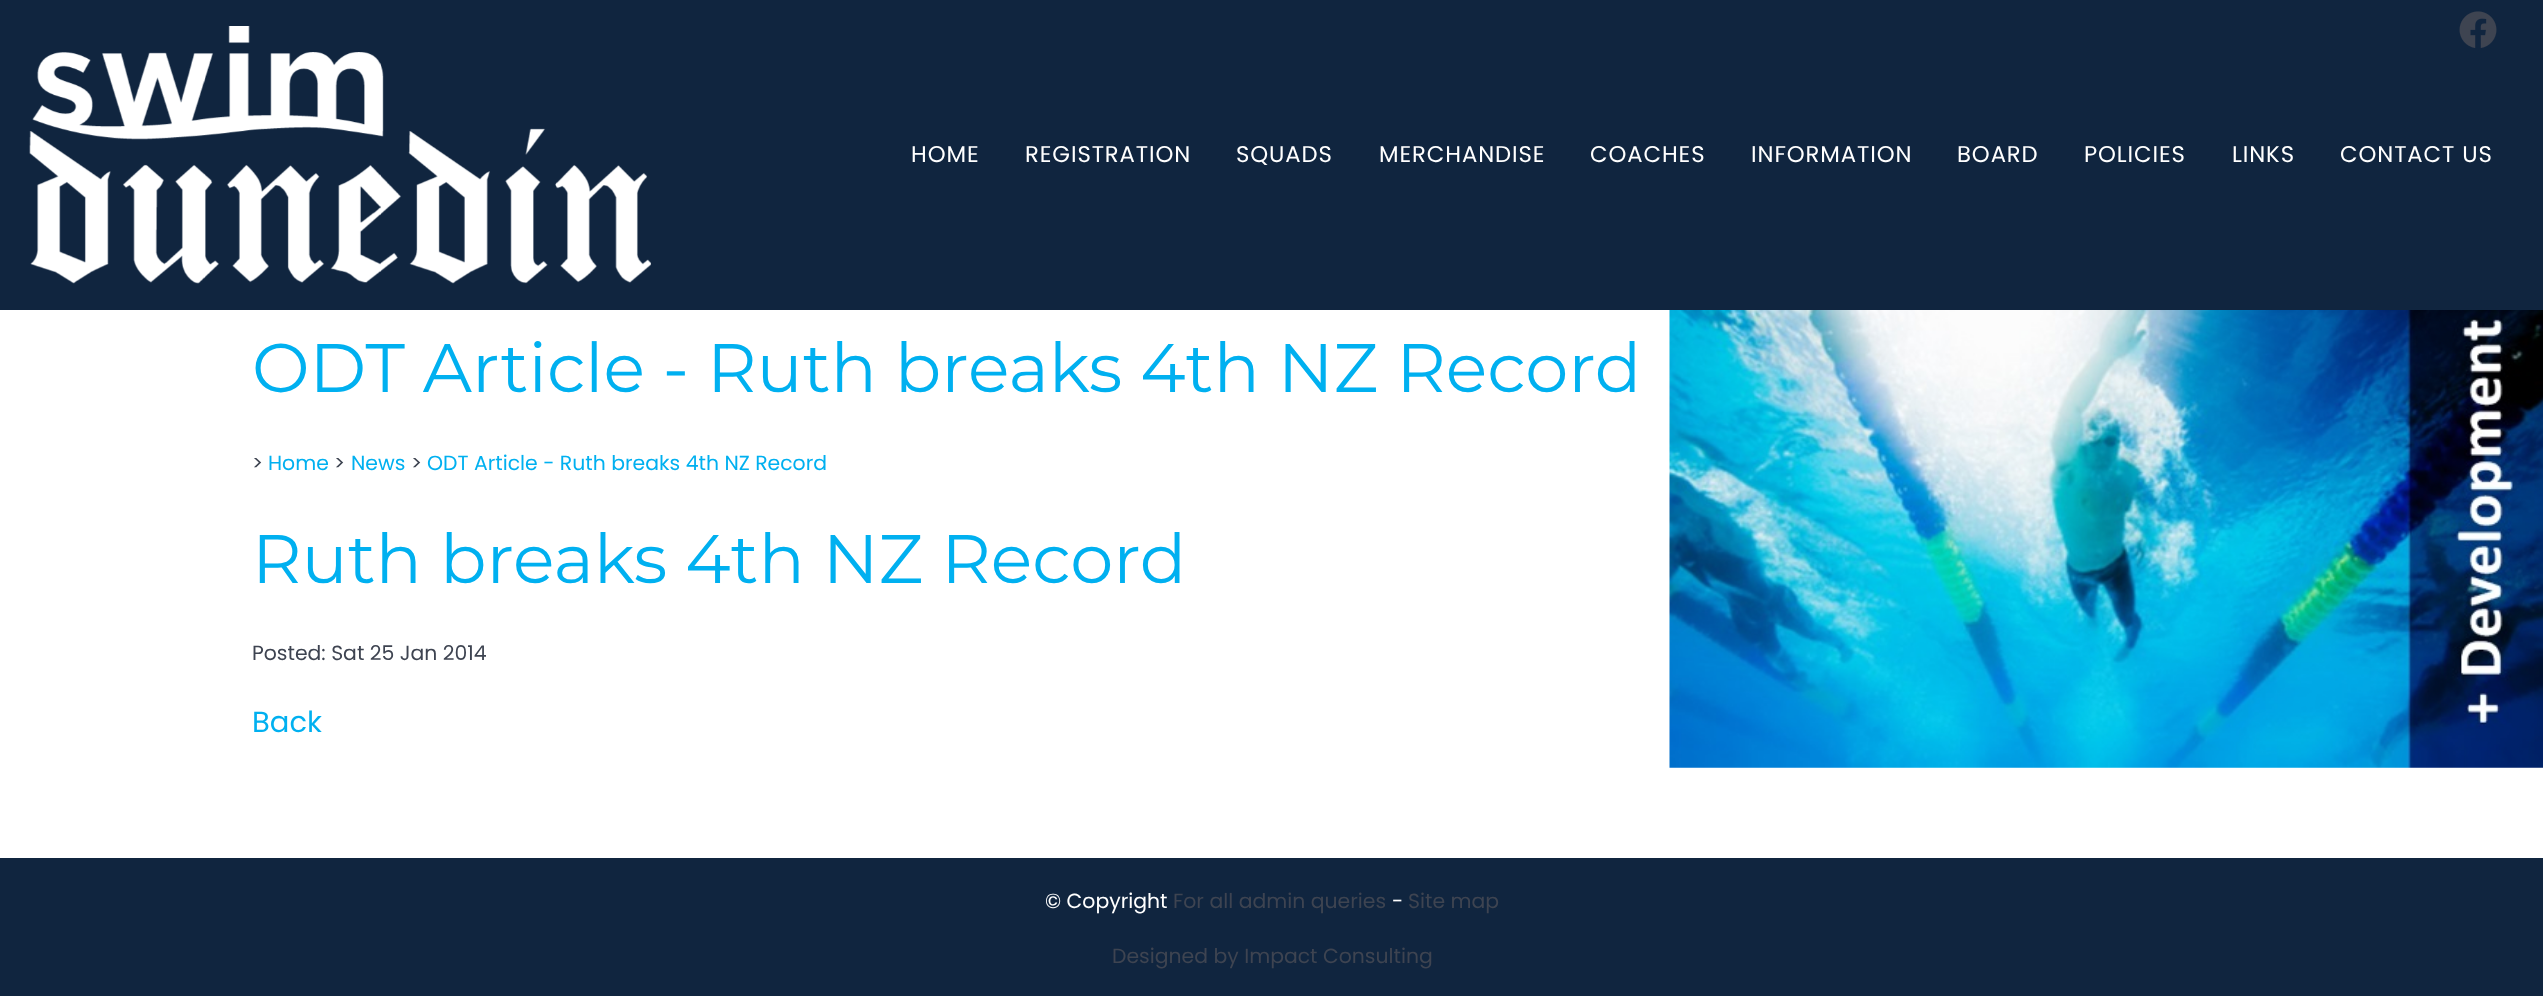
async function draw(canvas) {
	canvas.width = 2543;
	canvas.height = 996;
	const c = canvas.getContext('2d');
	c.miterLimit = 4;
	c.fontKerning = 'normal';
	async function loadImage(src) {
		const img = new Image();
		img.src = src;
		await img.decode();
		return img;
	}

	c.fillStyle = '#fff';
	c.fillRect(0, 0, 2543, 996);
	c.fillStyle = '#10253f';
	c.fillRect(0, 0, 2543, 310);
	c.drawImage(await loadImage('img1.png'), 29, 26, 622, 258);
	c.drawImage(await loadImage('img2.png'), 2459, 11, 38, 37);
	c.letterSpacing = '0.9px';
	c.font = '22.75px Poppins';
	c.fillStyle = '#fff';
	for (const [text, x, y] of [
		['HOME', 911, 162],
		['REGISTRATION', 1025, 162],
		['SQUADS', 1236, 162],
		['MERCHANDISE', 1379, 162],
		['COACHES', 1590, 162],
		['INFORMATION', 1751, 162],
		['BOARD', 1957, 162],
		['POLICIES', 2084, 162],
		['LINKS', 2232, 162],
		['CONTACT US', 2340, 162],
	]) {
		c.fillText(text, x, y);
	}
	c.drawImage(await loadImage('img3.png'), 1669, 310, 874, 458);
	c.letterSpacing = '0px';
	c.font = '68.6px Montserrat';
	c.fillStyle = '#00b0f0';
	c.fillText('ODT Article - Ruth breaks 4th NZ Record', 252, 392);
	c.font = '20.4px Poppins';
	c.fillStyle = '#3e4451';
	c.fillText('>', 252, 470);
	c.fillStyle = '#00b0f0';
	c.fillText('Home', 268, 470);
	c.fillStyle = '#3e4451';
	c.fillText('>', 334, 470);
	c.fillStyle = '#00b0f0';
	c.fillText('News', 351, 470);
	c.fillStyle = '#3e4451';
	c.fillText('>', 411, 470);
	c.fillStyle = '#00b0f0';
	c.fillText('ODT Article - Ruth breaks 4th NZ Record', 427, 470);
	c.font = '68.6px Montserrat';
	c.fillText('Ruth breaks 4th NZ Record', 252, 583);
	c.font = '20.4px Poppins';
	c.fillStyle = '#3e4451';
	c.fillText('Posted: Sat 25 Jan 2014', 252, 660);
	c.font = '29px Poppins';
	c.fillStyle = '#00b0f0';
	c.fillText('Back', 252, 732);
	c.fillStyle = '#10253f';
	c.fillRect(0, 858, 2543, 138);
	c.font = '20.4px Poppins';
	c.fillStyle = '#fff';
	c.fillText('© Copyright', 1045, 908);
	c.fillStyle = '#3e4451';
	c.fillText('For all admin queries', 1173, 908);
	c.fillStyle = '#fff';
	c.fillText('-', 1392, 908);
	c.fillStyle = '#3e4451';
	c.fillText('Site map', 1408, 908);
	c.fillText('Designed by Impact Consulting', 1112, 963);
}

draw(document.querySelector('canvas'));
